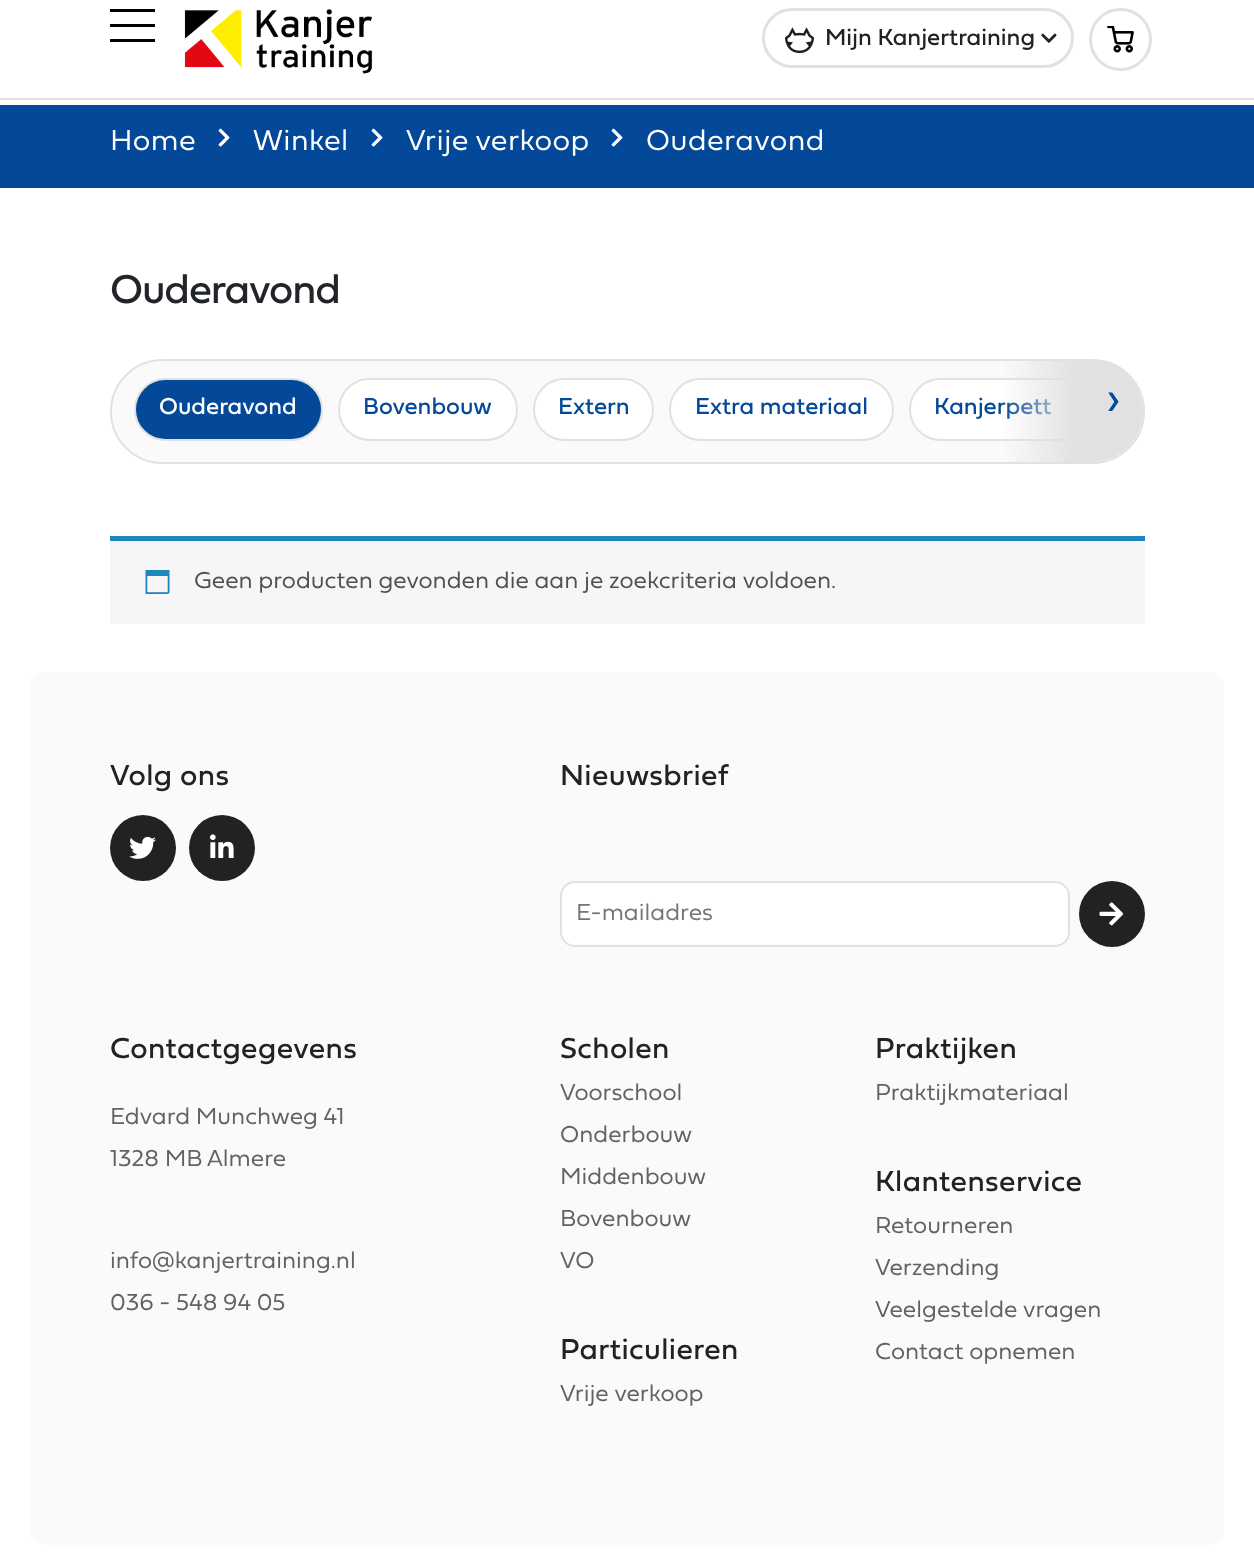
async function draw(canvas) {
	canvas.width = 1254;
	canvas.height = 1564;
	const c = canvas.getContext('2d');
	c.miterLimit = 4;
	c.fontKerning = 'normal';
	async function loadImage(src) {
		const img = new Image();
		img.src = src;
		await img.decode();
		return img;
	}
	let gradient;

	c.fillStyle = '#fff';
	c.fillRect(0, 0, 1254, 1564);
	for (const [x, y, w, h, color] of [
		[0, 98, 1254, 2, '#e1e1e1'],
		[110, 9, 45, 3, '#000'],
		[110, 24, 45, 3, '#000'],
		[110, 39, 45, 3, '#000'],
	]) {
		c.fillStyle = color;
		c.fillRect(x, y, w, h);
	}
	c.drawImage(await loadImage('img1.png'), 184, 9, 189, 65);
	c.beginPath();
	c.roundRect(763.5, 9.5, 309, 57, 28.5);
	c.strokeStyle = '#e1e1e1';
	c.lineWidth = 3;
	c.stroke();
	c.drawImage(await loadImage('img2.png'), 785, 27, 30, 26);
	c.font = '24px "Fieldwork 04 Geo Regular"';
	c.fillStyle = '#222';
	c.fillText('Mijn Kanjertraining', 825, 45);
	c.drawImage(await loadImage('img3.png'), 1041, 33, 16, 10);
	c.drawImage(await loadImage('img4.png'), 1107, 26, 27, 27);
	c.beginPath();
	c.arc(1120.5, 39.5, 30, 0, 2 * Math.PI);
	c.stroke();
	c.fillStyle = '#04489a';
	c.fillRect(0, 105, 1254, 83);
	c.letterSpacing = '0.4px';
	c.font = '300 30px "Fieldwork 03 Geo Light"';
	c.fillStyle = '#fff';
	c.fillText('Home', 110, 150);
	c.drawImage(await loadImage('img5.png'), 218, 128, 12, 19);
	c.fillText('Winkel', 253, 150);
	c.drawImage(await loadImage('img5.png'), 371, 128, 12, 19);
	c.wordSpacing = '-1px';
	c.fillText('Vrije verkoop', 406, 150);
	c.drawImage(await loadImage('img5.png'), 611, 128, 12, 19);
	c.wordSpacing = '0px';
	c.fillText('Ouderavond', 646, 150);
	c.letterSpacing = '-1.1px';
	c.font = '42px "Fieldwork 04 Geo Regular"';
	c.fillStyle = '#212529';
	c.fillText('Ouderavond', 110, 303);
	c.fillStyle = '#fafafa';
	c.beginPath();
	c.roundRect(111, 360, 1033, 103, 51.5);
	c.fill();
	c.lineWidth = 2;
	c.stroke();
	c.fillStyle = '#04489a';
	c.beginPath();
	c.roundRect(135, 379, 187, 61, 30.5);
	c.fill();
	c.stroke();
	c.letterSpacing = '0px';
	c.font = '24px "Fieldwork 04 Geo Regular"';
	c.fillStyle = '#fff';
	c.fillText('Ouderavond', 159, 414);
	c.beginPath();
	c.roundRect(339, 379, 178, 61, 30.5);
	c.fill();
	c.stroke();
	c.fillStyle = '#04489a';
	c.fillText('Bovenbouw', 363, 414);
	c.fillStyle = '#fff';
	c.beginPath();
	c.roundRect(534, 379, 119, 61, 30.5);
	c.fill();
	c.stroke();
	c.fillStyle = '#04489a';
	c.fillText('Extern', 558, 414);
	c.fillStyle = '#fff';
	c.beginPath();
	c.roundRect(670, 379, 223, 61, 30.5);
	c.fill();
	c.stroke();
	c.fillStyle = '#04489a';
	c.fillText('Extra materiaal', 695, 414);
	c.fillStyle = '#fff';
	c.beginPath();
	c.roundRect(910, 379, 193, 61, 30.5);
	c.fill();
	c.stroke();
	c.fillStyle = '#04489a';
	c.fillText('Kanjerpett', 934, 414);
	c.save();
	c.beginPath();
	c.roundRect(111, 360, 1032, 102, 51);
	c.clip();
	c.fillStyle = '#fff';
	c.beginPath();
	c.roundRect(1119, 378, 24, 63, [31.5, 0, 0, 31.5]);
	c.fill();
	c.restore();
	c.fillStyle = '#e1e1e1';
	c.beginPath();
	c.moveTo(1134, 382);
	c.bezierCurveTo(1113, 395, 1114, 426, 1136, 437);
	c.lineTo(1137, 436);
	c.bezierCurveTo(1116, 425, 1116, 396, 1135, 384);
	c.closePath();
	c.fill();
	gradient = c.createLinearGradient(1001, 410, 1151, 410);
	gradient.addColorStop(0, '#e1e1e100');
	gradient.addColorStop(0.5, '#e1e1e1');
	c.fillStyle = gradient;
	c.beginPath();
	c.roundRect(1001, 360, 142, 102, [0, 51, 51, 0]);
	c.fill();
	c.font = '300 48px "Fieldwork 03 Geo Light"';
	c.fillStyle = '#04489a';
	c.fillText('›', 1106, 413);
	c.fillStyle = '#f6f5f8';
	c.fillRect(110, 541, 1035, 83);
	c.fillStyle = '#1e85be';
	c.fillRect(110, 536, 1035, 5);
	c.drawImage(await loadImage('img6.png'), 145, 570, 25, 24);
	c.font = '300 24px "Fieldwork 03 Geo Light"';
	c.fillStyle = '#515151';
	c.fillText('Geen producten gevonden die aan je zoekcriteria voldoen.', 194, 588);
	c.fillStyle = '#fafafa';
	c.beginPath();
	c.roundRect(30, 672, 1194, 873, 15);
	c.fill();
	c.letterSpacing = '0.4px';
	c.font = '30px "Fieldwork 04 Geo Regular"';
	c.fillStyle = '#222';
	c.fillText('Volg ons', 110, 785);
	c.beginPath();
	c.arc(143, 848, 33, 0, 2 * Math.PI);
	c.fill();
	c.drawImage(await loadImage('img7.png'), 129, 836, 27, 23);
	c.beginPath();
	c.arc(222, 848, 33, 0, 2 * Math.PI);
	c.fill();
	c.drawImage(await loadImage('img8.png'), 210, 834, 24, 24);
	c.fillText('Nieuwsbrief', 560, 785);
	c.fillStyle = '#fff';
	c.beginPath();
	c.roundRect(561, 882, 508, 64, 14);
	c.fill();
	c.stroke();
	c.letterSpacing = '0px';
	c.font = '300 24px "Fieldwork 03 Geo Light"';
	c.fillStyle = '#757575';
	c.fillText('E-mailadres', 576, 920);
	c.fillStyle = '#222';
	c.beginPath();
	c.arc(1112, 914, 33, 0, 2 * Math.PI);
	c.fill();
	c.drawImage(await loadImage('img9.png'), 1099, 902, 25, 24);
	c.letterSpacing = '0.4px';
	c.font = '30px "Fieldwork 04 Geo Regular"';
	c.fillText('Contactgegevens', 110, 1058);
	c.letterSpacing = '0px';
	c.font = '300 24px "Fieldwork 03 Geo Light"';
	c.fillStyle = '#626262';
	for (const [text, x, y] of [
		['Edvard Munchweg 41', 110, 1124],
		['1328 MB', 110, 1166],
		['Almere', 207, 1166],
		['info@kanjertraining.nl', 110, 1268],
		['036 - 548 94 05', 110, 1310],
	]) {
		c.fillText(text, x, y);
	}
	c.letterSpacing = '0.4px';
	c.font = '30px "Fieldwork 04 Geo Regular"';
	c.fillStyle = '#222';
	c.fillText('Scholen', 560, 1058);
	c.letterSpacing = '0px';
	c.font = '300 24px "Fieldwork 03 Geo Light"';
	c.fillStyle = '#626262';
	for (const [text, x, y] of [
		['Voorschool', 560, 1100],
		['Onderbouw', 560, 1142],
		['Middenbouw', 560, 1184],
		['Bovenbouw', 560, 1226],
		['VO', 560, 1268],
	]) {
		c.fillText(text, x, y);
	}
	c.letterSpacing = '0.4px';
	c.font = '30px "Fieldwork 04 Geo Regular"';
	c.fillStyle = '#222';
	c.fillText('Particulieren', 560, 1359);
	c.letterSpacing = '0px';
	c.font = '300 24px "Fieldwork 03 Geo Light"';
	c.fillStyle = '#626262';
	c.fillText('Vrije verkoop', 560, 1401);
	c.letterSpacing = '0.4px';
	c.font = '30px "Fieldwork 04 Geo Regular"';
	c.fillStyle = '#222';
	c.fillText('Praktijken', 875, 1058);
	c.letterSpacing = '0px';
	c.font = '300 24px "Fieldwork 03 Geo Light"';
	c.fillStyle = '#626262';
	c.fillText('Praktijkmateriaal', 875, 1100);
	c.letterSpacing = '0.4px';
	c.font = '30px "Fieldwork 04 Geo Regular"';
	c.fillStyle = '#222';
	c.fillText('Klantenservice', 875, 1191);
	c.letterSpacing = '0px';
	c.font = '300 24px "Fieldwork 03 Geo Light"';
	c.fillStyle = '#626262';
	for (const [text, x, y] of [
		['Retourneren', 875, 1233],
		['Verzending', 875, 1275],
		['Veelgestelde vragen', 875, 1317],
		['Contact opnemen', 875, 1359],
	]) {
		c.fillText(text, x, y);
	}
}

draw(document.querySelector('canvas'));
